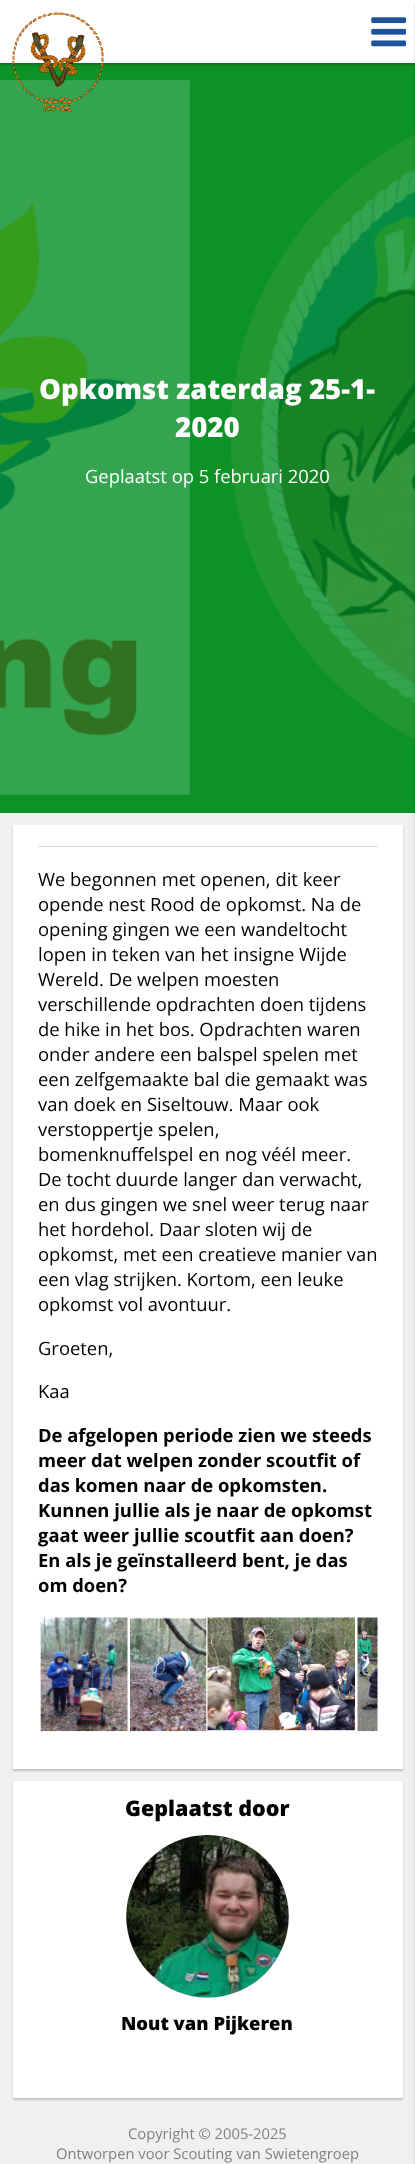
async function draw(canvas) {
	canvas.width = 415;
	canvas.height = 2164;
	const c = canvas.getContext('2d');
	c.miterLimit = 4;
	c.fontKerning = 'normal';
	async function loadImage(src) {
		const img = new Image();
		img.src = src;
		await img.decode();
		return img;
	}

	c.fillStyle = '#f0f0f0';
	c.fillRect(0, 0, 415, 2164);
	c.fillStyle = '#038d24';
	c.fillRect(0, 812, 415, 1);
	c.drawImage(await loadImage('img3.png'), 0, 63, 415, 750);
	c.fillStyle = '#00000033';
	c.filter = 'blur(1px)';
	c.beginPath();
	c.rect(0, 3, 415, 62);
	c.fill();
	c.filter = 'none';
	c.fillStyle = '#fff';
	c.fillRect(0, 0, 415, 63);
	c.drawImage(await loadImage('img1.png'), 12, 12, 92, 101);
	c.fillStyle = '#00000033';
	c.filter = 'blur(1px)';
	c.beginPath();
	c.rect(415, 3, 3, 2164);
	c.fill();
	c.filter = 'none';
	c.drawImage(await loadImage('img2.png'), 371, 17, 35, 30);
	c.font = '800 27.6px Open Sans';
	c.fillStyle = '#fff';
	c.fillText('Opkomst zaterdag 25-1-', 39, 399);
	c.fillText('2020', 175, 437);
	c.font = '18.4px Open Sans';
	c.fillText('Geplaatst op 5 februari 2020', 85, 483);
	c.fillStyle = '#00000033';
	c.filter = 'blur(1px)';
	c.beginPath();
	c.rect(13, 828, 390, 943);
	c.fill();
	c.filter = 'none';
	c.fillStyle = '#fff';
	c.fillRect(13, 825, 390, 944);
	c.fillStyle = '#ddd';
	c.fillRect(38, 846, 340, 1);
	c.fillStyle = '#000';
	for (const [text, x, y] of [
		['We begonnen met openen, dit keer', 38, 886],
		['opende nest Rood de opkomst. Na de', 38, 911],
		['opening gingen we een wandeltocht', 38, 936],
		['lopen in teken van het insigne Wijde', 38, 961],
		['Wereld. De welpen moesten', 38, 986],
		['verschillende opdrachten doen tijdens', 38, 1011],
		['de hike in het bos. Opdrachten waren', 38, 1036],
		['onder andere een balspel spelen met', 38, 1061],
		['een zelfgemaakte bal die gemaakt was', 38, 1086],
		['van doek en Siseltouw. Maar ook', 38, 1111],
		['verstoppertje spelen,', 38, 1136],
		['bomenknuffelspel en nog véél meer.', 38, 1161],
		['De tocht duurde langer dan verwacht,', 38, 1186],
		['en dus gingen we snel weer terug naar', 38, 1211],
		['het hordehol. Daar sloten wij de', 38, 1236],
		['opkomst, met een creatieve manier van', 38, 1261],
		['een vlag strijken. Kortom, een leuke', 38, 1286],
		['opkomst vol avontuur.', 38, 1311],
		['Groeten,', 38, 1355],
		['Kaa', 38, 1398],
	]) {
		c.fillText(text, x, y);
	}
	c.font = 'bold 18.4px Open Sans';
	for (const [text, x, y] of [
		['De afgelopen periode zien we steeds', 38, 1442],
		['meer dat welpen zonder scoutfit of', 38, 1467],
		['das komen naar de opkomsten.', 38, 1492],
		['Kunnen jullie als je naar de opkomst', 38, 1517],
		['gaat weer jullie scoutfit aan doen?', 38, 1542],
		['En als je geïnstalleerd bent, je das', 38, 1567],
		['om doen?', 38, 1592],
	]) {
		c.fillText(text, x, y);
	}
	c.drawImage(await loadImage('img4.png'), 40, 1617, 88, 115);
	c.drawImage(await loadImage('img5.png'), 130, 1617, 77, 115);
	c.drawImage(await loadImage('img6.png'), 207, 1617, 148, 114);
	c.drawImage(await loadImage('img7.png'), 357, 1617, 21, 115);
	c.fillStyle = '#00000033';
	c.filter = 'blur(1px)';
	c.beginPath();
	c.rect(13, 1784, 390, 316);
	c.fill();
	c.filter = 'none';
	c.fillStyle = '#fff';
	c.fillRect(13, 1781, 390, 317);
	c.font = '800 21.5px Open Sans';
	c.fillStyle = '#000';
	c.fillText('Geplaatst door', 125, 1816);
	c.fillStyle = '#ede8e8';
	c.beginPath();
	c.arc(207.5, 1916.5, 81.5, 0, 2 * Math.PI);
	c.fill();
	c.drawImage(await loadImage('img8.png'), 126, 1835, 163, 163);
	c.font = '800 18.4px Open Sans';
	c.fillStyle = '#000';
	c.fillText('Nout van Pijkeren', 121, 2030);
	c.font = '14.75px Open Sans';
	c.fillStyle = '#808080';
	c.fillText('Copyright © 2005-2025', 128, 2139);
	c.fillText('Ontworpen voor Scouting van Swietengroep', 56, 2159);
}

draw(document.querySelector('canvas'));
